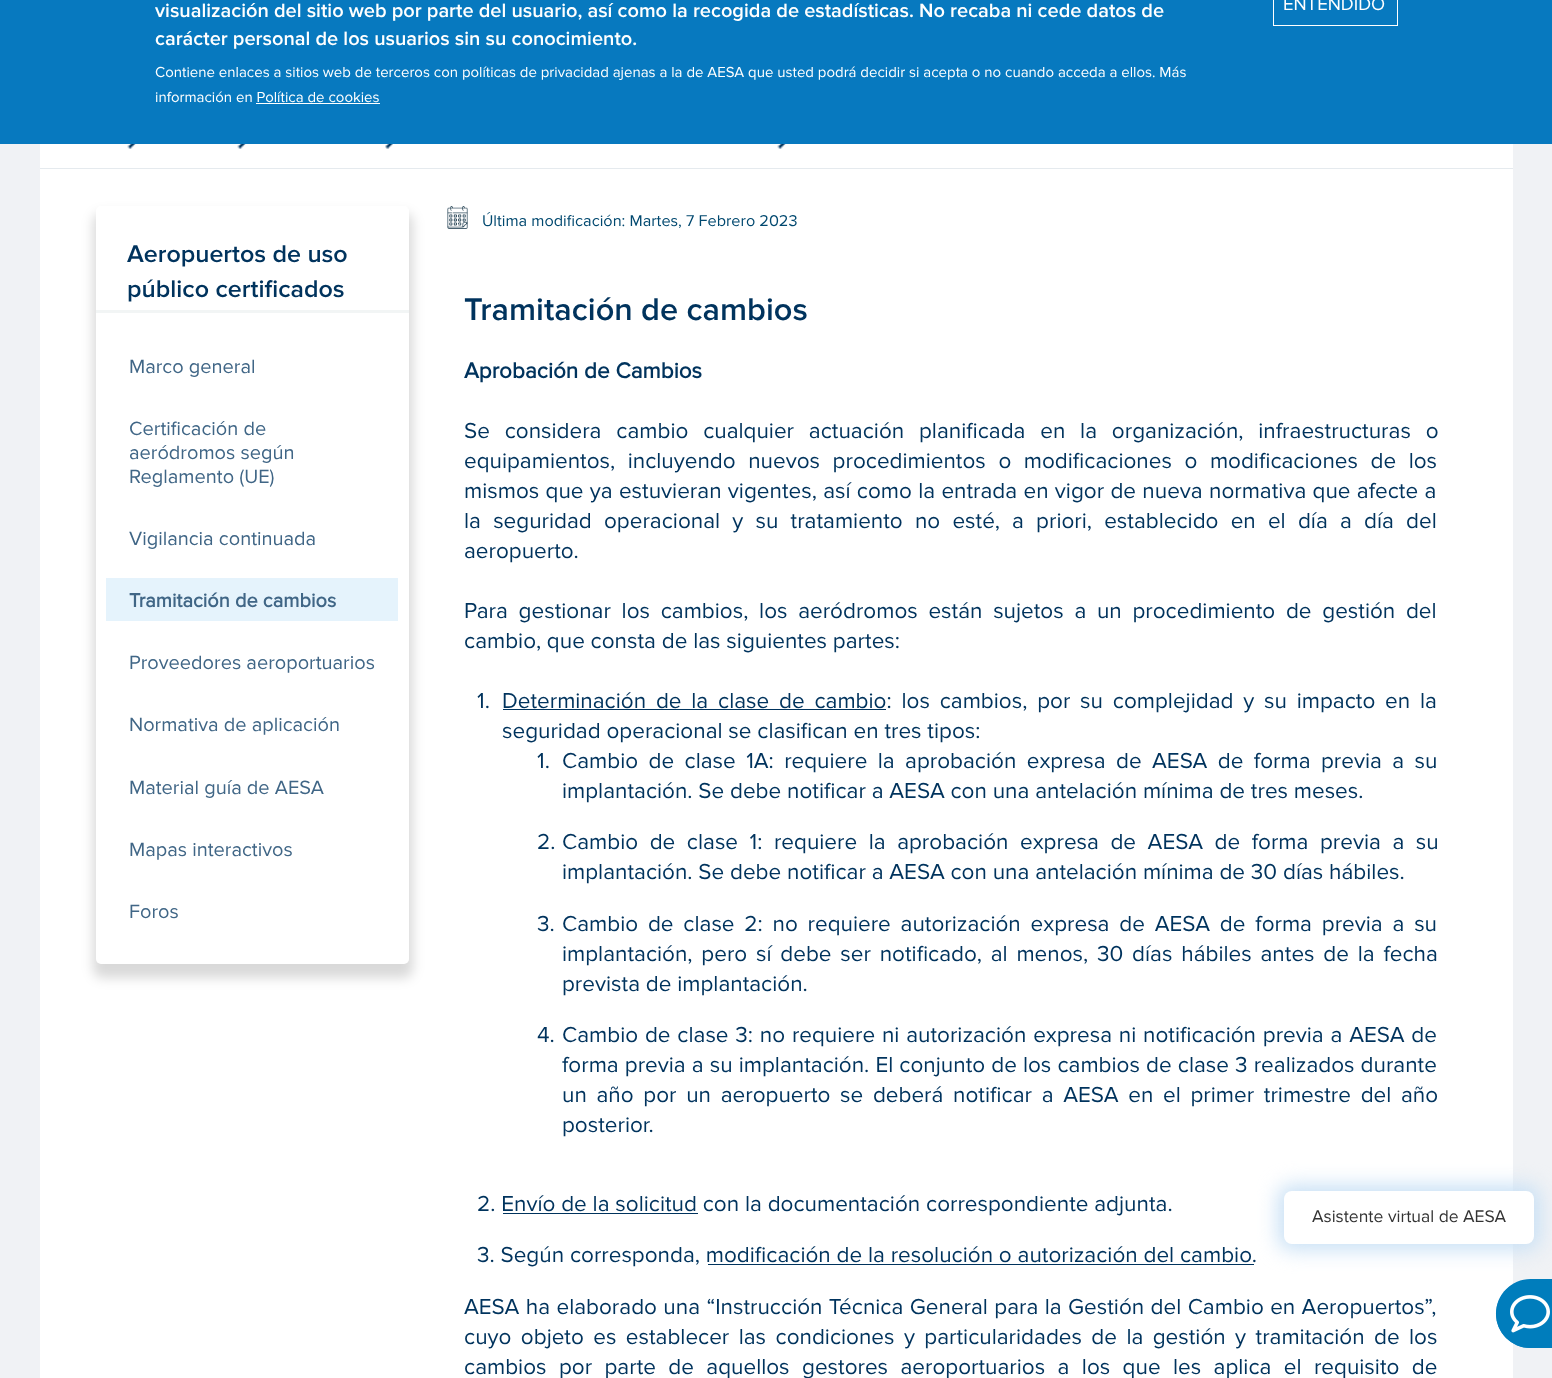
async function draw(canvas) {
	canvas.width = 1552;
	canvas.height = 1378;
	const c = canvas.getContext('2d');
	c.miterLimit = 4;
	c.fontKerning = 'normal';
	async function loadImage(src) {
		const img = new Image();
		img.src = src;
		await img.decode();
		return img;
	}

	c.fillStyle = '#f0f2f5';
	c.fillRect(0, 0, 1552, 1378);
	c.fillStyle = '#0779bf';
	c.fillRect(0, 0, 1552, 144);
	c.font = '600 20px Proxima Nova';
	c.fillStyle = '#fff';
	c.fillText('visualización del sitio web por parte del usuario, así como la recogida de estadísticas. No recaba ni cede datos de', 155, 17);
	c.fillText('carácter personal de los usuarios sin su conocimiento.', 155, 45);
	c.font = '15px Proxima Nova';
	c.fillText('Contiene enlaces a sitios web de terceros con políticas de privacidad ajenas a la de AESA que usted podrá decidir si acepta o no cuando acceda a ellos. Más', 155, 77);
	c.fillText('información en Política de cookies', 155, 102);
	c.fillRect(256, 103, 124, 1);
	c.strokeStyle = '#fff';
	c.strokeRect(1273.5, -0.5, 124, 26);
	c.font = '18.5px Proxima Nova';
	c.fillText('ENTENDIDO', 1283, 10);
	c.fillRect(40, 144, 1473, 1234);
	c.fillStyle = '#e5eaee';
	c.fillRect(40, 168, 1473, 1);
	c.drawImage(await loadImage('img1.png'), 127, 144, 9, 5);
	c.drawImage(await loadImage('img1.png'), 237, 144, 9, 5);
	c.drawImage(await loadImage('img2.png'), 385, 144, 8, 5);
	c.drawImage(await loadImage('img3.png'), 777, 144, 9, 5);
	c.fillStyle = '#00000026';
	c.filter = 'blur(6px)';
	c.beginPath();
	c.roundRect(93, 213, 320, 765, 9);
	c.fill();
	c.filter = 'none';
	c.fillStyle = '#fff';
	c.beginPath();
	c.roundRect(96, 206, 313, 758, 5);
	c.fill();
	c.fillStyle = '#f2f5f5';
	c.fillRect(96, 310, 313, 3);
	c.font = '600 25px Proxima Nova';
	c.fillStyle = '#00335d';
	c.fillText('Aeropuertos de uso', 127, 262);
	c.fillText('público certificados', 127, 297);
	c.font = '20px Proxima Nova';
	c.fillStyle = '#406686';
	for (const [text, x, y] of [
		['Marco general', 129, 373],
		['Certificación de', 129, 435],
		['aeródromos según', 129, 459],
		['Reglamento (UE)', 129, 483],
		['Vigilancia continuada', 129, 545],
	]) {
		c.fillText(text, x, y);
	}
	c.fillStyle = '#e5f3fc';
	c.fillRect(106, 578, 292, 43);
	c.font = 'bold 20px Proxima Nova';
	c.fillStyle = '#406686';
	c.fillText('Tramitación de cambios', 129, 607);
	c.font = '20px Proxima Nova';
	for (const [text, x, y] of [
		['Proveedores aeroportuarios', 129, 669],
		['Normativa de aplicación', 129, 731],
		['Material guía de AESA', 129, 794],
		['Mapas interactivos', 129, 856],
		['Foros', 129, 918],
	]) {
		c.fillText(text, x, y);
	}
	c.drawImage(await loadImage('img4.png'), 447, 206, 21, 23);
	c.font = '16.25px Proxima Nova';
	c.fillStyle = '#00486f';
	c.fillText('Última modificación: Martes, 7 Febrero 2023', 482, 226);
	c.font = '600 32.5px Proxima Nova';
	c.fillStyle = '#00335d';
	c.fillText('Tramitación de cambios', 464, 320);
	c.font = 'bold 22.5px Proxima Nova';
	c.fillText('Aprobación de Cambios', 464, 378);
	c.wordSpacing = '9px';
	c.font = '22.5px Proxima Nova';
	c.fillText('Se considera cambio cualquier actuación planificada en la organización, infraestructuras o', 464, 438);
	c.wordSpacing = '6.75px';
	c.fillText('equipamientos, incluyendo nuevos procedimientos o modificaciones o modificaciones de los', 464, 468);
	c.wordSpacing = '0.5px';
	c.fillText('mismos que ya estuvieran vigentes, así como la entrada en vigor de nueva normativa que afecte a', 464, 498);
	c.wordSpacing = '6.4px';
	c.fillText('la seguridad operacional y su tratamiento no esté, a priori, establecido en el día a día del', 464, 528);
	c.wordSpacing = '0px';
	c.fillText('aeropuerto.', 464, 558);
	c.wordSpacing = '4.9px';
	c.fillText('Para gestionar los cambios, los aeródromos están sujetos a un procedimiento de gestión del', 464, 618);
	c.wordSpacing = '0px';
	c.fillText('cambio, que consta de las siguientes partes:', 464, 648);
	c.fillText('1.', 477, 708);
	c.fillRect(503, 709, 383, 1);
	c.wordSpacing = '4px';
	c.fillText('Determinación de la clase de cambio: los cambios, por su complejidad y su impacto en la', 502, 708);
	c.wordSpacing = '0px';
	c.fillText('seguridad operacional se clasifican en tres tipos:', 502, 738);
	c.fillText('1.', 537, 768);
	c.wordSpacing = '4.6px';
	c.fillText('Cambio de clase 1A: requiere la aprobación expresa de AESA de forma previa a su', 562, 768);
	c.wordSpacing = '0px';
	c.fillText('implantación. Se debe notificar a AESA con una antelación mínima de tres meses.', 562, 798);
	c.fillText('2.', 537, 849);
	c.wordSpacing = '5.75px';
	c.fillText('Cambio de clase 1: requiere la aprobación expresa de AESA de forma previa a su', 562, 849);
	c.wordSpacing = '0px';
	c.fillText('implantación. Se debe notificar a AESA con una antelación mínima de 30 días hábiles.', 562, 879);
	c.fillText('3.', 537, 931);
	c.wordSpacing = '4px';
	c.fillText('Cambio de clase 2: no requiere autorización expresa de AESA de forma previa a su', 562, 931);
	c.wordSpacing = '3px';
	c.fillText('implantación, pero sí debe ser notificado, al menos, 30 días hábiles antes de la fecha', 562, 961);
	c.wordSpacing = '0px';
	c.fillText('prevista de implantación.', 562, 991);
	c.fillText('4.', 537, 1042);
	c.wordSpacing = '1px';
	c.fillText('Cambio de clase 3: no requiere ni autorización expresa ni notificación previa a AESA de', 562, 1042);
	c.wordSpacing = '0.3px';
	c.fillText('forma previa a su implantación. El conjunto de los cambios de clase 3 realizados durante', 562, 1072);
	c.wordSpacing = '3.9px';
	c.fillText('un año por un aeropuerto se deberá notificar a AESA en el primer trimestre del año', 562, 1102);
	c.wordSpacing = '0px';
	c.fillText('posterior.', 562, 1132);
	c.fillText('2. Envío de la solicitud con la documentación correspondiente adjunta.', 477, 1211);
	c.fillRect(503, 1213, 195, 1);
	c.fillText('3. Según corresponda, modificación de la resolución o autorización del cambio.', 477, 1262);
	c.fillRect(708, 1264, 546, 1);
	c.wordSpacing = '0.6px';
	c.fillText('AESA ha elaborado una “Instrucción Técnica General para la Gestión del Cambio en Aeropuertos”,', 464, 1314);
	c.wordSpacing = '3.6px';
	c.fillText('cuyo objeto es establecer las condiciones y particularidades de la gestión y tramitación de los', 464, 1344);
	c.wordSpacing = '6.6px';
	c.fillText('cambios por parte de aquellos gestores aeroportuarios a los que les aplica el requisito de', 464, 1374);
	c.fillStyle = '#007dbc';
	c.beginPath();
	c.moveTo(1530.5, 1279);
	c.lineTo(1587, 1279);
	c.lineTo(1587, 1348);
	c.lineTo(1530.5, 1348);
	c.bezierCurveTo(1511.5, 1348, 1496, 1332.5, 1496, 1313.5);
	c.bezierCurveTo(1496, 1294.5, 1511.5, 1279, 1530.5, 1279);
	c.closePath();
	c.fill();
	c.fillStyle = '#c8e0f5';
	c.filter = 'blur(10px)';
	c.beginPath();
	c.roundRect(1278, 1185, 262, 65, 13);
	c.fill();
	c.filter = 'none';
	c.fillStyle = '#fff';
	c.beginPath();
	c.roundRect(1284, 1191, 250, 53, 8);
	c.fill();
	c.wordSpacing = '0px';
	c.font = '17.5px Proxima Nova';
	c.fillStyle = '#333';
	c.fillText('Asistente virtual de AESA', 1312, 1222);
	c.fillStyle = '#007dbc';
	c.beginPath();
	c.arc(1530, 1314, 34, 0, 2 * Math.PI);
	c.fill();
	c.drawImage(await loadImage('img5.png'), 1510, 1295, 40, 38);
}

draw(document.querySelector('canvas'));
